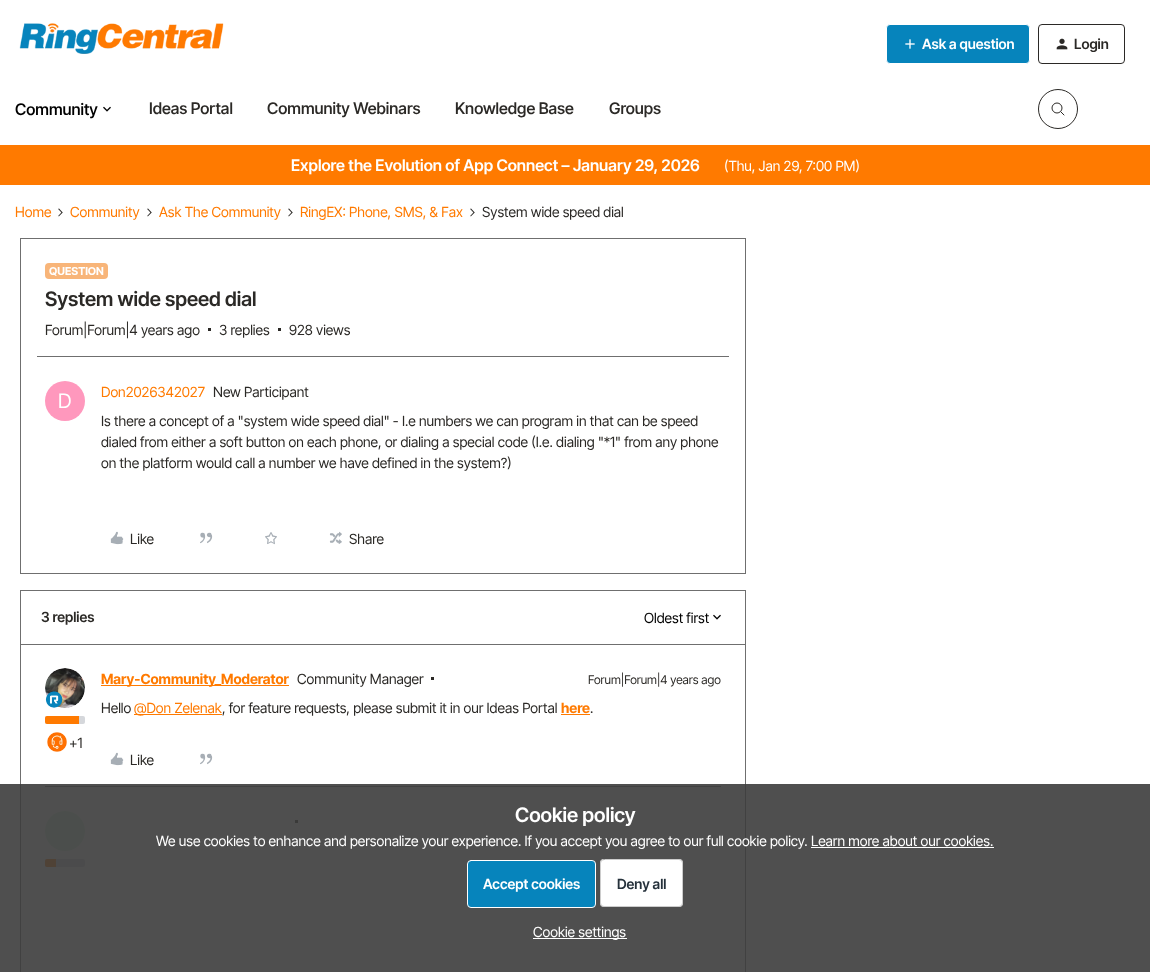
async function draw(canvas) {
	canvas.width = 1150;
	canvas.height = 972;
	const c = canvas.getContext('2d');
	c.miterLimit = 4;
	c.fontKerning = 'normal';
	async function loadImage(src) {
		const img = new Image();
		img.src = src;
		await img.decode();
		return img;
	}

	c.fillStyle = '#fff';
	c.fillRect(0, 0, 1150, 972);
	c.drawImage(await loadImage('img1.png'), 19, 23, 205, 31);
	c.fillStyle = '#0684bc';
	c.beginPath();
	c.roundRect(886.5, 24.5, 143, 39, 3.5);
	c.fill();
	c.strokeStyle = '#fff';
	c.stroke();
	c.drawImage(await loadImage('img2.png'), 905, 39, 10, 10);
	c.font = '600 14px "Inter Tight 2"';
	c.fillStyle = '#fff';
	c.fillText('Ask a question', 922, 49);
	c.beginPath();
	c.roundRect(1038.5, 24.5, 86, 39, 3.5);
	c.strokeStyle = '#2b2926';
	c.stroke();
	c.drawImage(await loadImage('img3.png'), 1056, 38, 12, 12);
	c.fillStyle = '#2b2926';
	c.fillText('Login', 1074, 49);
	c.font = '500 16px Inter Tight';
	c.fillStyle = '#000';
	c.fillText('Community', 15, 115);
	c.drawImage(await loadImage('img4.png'), 103, 106, 8, 6);
	c.fillStyle = '#2b2926';
	for (const [text, x, y] of [
		['Ideas Portal', 149, 114],
		['Community Webinars', 267, 114],
		['Knowledge Base', 455, 114],
		['Groups', 609, 114],
	]) {
		c.fillText(text, x, y);
	}
	c.beginPath();
	c.arc(1058, 109, 19.5, 0, 2 * Math.PI);
	c.stroke();
	c.beginPath();
	c.arc(1057, 108, 5, 0, 2 * Math.PI);
	c.stroke();
	c.beginPath();
	c.moveTo(1061, 112);
	c.lineTo(1064, 115);
	c.lineCap = 'round';
	c.stroke();
	c.fillStyle = '#ff7a00';
	c.fillRect(0, 145, 1150, 40);
	c.font = '600 16px Inter Tight';
	c.fillStyle = '#fff';
	c.fillText('Explore the Evolution of App Connect – January 29, 2026', 291, 171);
	c.font = '14px Inter Tight';
	c.fillText('(Thu, Jan 29, 7:00 PM)', 724, 171);
	c.fillStyle = '#ff7a00';
	c.fillText('Home', 15, 217);
	c.drawImage(await loadImage('img5.png'), 58, 208, 5, 9);
	c.fillText('Community', 70, 217);
	c.drawImage(await loadImage('img5.png'), 147, 208, 5, 9);
	c.fillText('Ask The Community', 159, 217);
	c.drawImage(await loadImage('img5.png'), 288, 208, 5, 9);
	c.fillText('RingEX: Phone, SMS, & Fax', 300, 217);
	c.drawImage(await loadImage('img5.png'), 470, 208, 5, 9);
	c.fillStyle = '#2b2926';
	c.fillText('System wide speed dial', 482, 217);
	c.strokeStyle = '#6f6f6f';
	c.strokeRect(20.5, 238.5, 725, 335);
	c.fillStyle = '#f8b579';
	c.beginPath();
	c.roundRect(45, 263, 63, 16, 4);
	c.fill();
	c.font = 'bold 11px Inter Tight';
	c.fillStyle = '#fff';
	c.fillText('QUESTION', 49, 275);
	c.font = '600 20px Inter Tight';
	c.fillStyle = '#2b2926';
	c.fillText('System wide speed dial', 45, 306);
	c.font = '14px Inter Tight';
	c.fillText('Forum|Forum|4 years ago', 45, 335);
	c.fillRect(208, 328, 3, 3);
	c.fillText('3 replies', 219, 335);
	c.fillRect(278, 328, 3, 3);
	c.fillText('928 views', 289, 335);
	c.fillStyle = '#6f6f6f';
	c.fillRect(37, 356, 692, 1);
	c.fillStyle = '#ff98bd';
	c.beginPath();
	c.arc(65, 401, 20, 0, 2 * Math.PI);
	c.fill();
	c.font = '20px Inter Tight';
	c.fillStyle = '#fff';
	c.fillText('D', 58, 408);
	c.font = '14px Inter Tight';
	c.fillStyle = '#ff7a00';
	c.fillText('Don2026342027', 101, 397);
	c.fillStyle = '#2b2926';
	for (const [text, x, y] of [
		['New Participant', 213, 397],
		['Is there a concept of a "system wide speed dial" - I.e numbers we can program in that can be speed', 101, 426],
		['dialed from either a soft button on each phone, or dialing a special code (I.e. dialing "*1" from any phone', 101, 447],
		['on the platform would call a number we have defined in the system?)', 101, 468],
	]) {
		c.fillText(text, x, y);
	}
	c.drawImage(await loadImage('img6.png'), 110, 531, 14, 14);
	c.fillText('Like', 130, 544);
	c.drawImage(await loadImage('img7.png'), 200, 532, 13, 12);
	c.drawImage(await loadImage('img8.png'), 265, 532, 12, 13);
	c.drawImage(await loadImage('img9.png'), 329, 531, 13, 13);
	c.fillText('Share', 349, 544);
	c.strokeRect(20.5, 590.5, 725, 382);
	c.fillStyle = '#6f6f6f';
	c.fillRect(21, 644, 724, 1);
	c.font = '600 14px Inter Tight';
	c.fillStyle = '#2b2926';
	c.fillText('3 replies', 41, 622);
	c.font = '14px Inter Tight';
	c.fillStyle = '#000';
	c.fillText('Oldest first', 644, 623);
	c.drawImage(await loadImage('img4.png'), 713, 614, 8, 6);
	c.fillStyle = '#ff7a00';
	c.fillRect(101, 685, 188, 1);
	c.font = 'bold 14px Inter Tight';
	c.fillText('Mary-Community_Moderator', 101, 684);
	c.font = '14px Inter Tight';
	c.fillStyle = '#2b2926';
	c.fillText('Community Manager', 297, 684);
	c.fillRect(431, 677, 3, 3);
	c.font = '12px Inter Tight';
	c.fillText('Forum|Forum|4 years ago', 588, 684);
	c.font = '14px Inter Tight';
	c.fillText('Hello', 101, 713);
	c.fillStyle = '#ff7a00';
	c.fillRect(134, 714, 88, 1);
	c.fillText('@Don Zelenak', 134, 713);
	c.fillStyle = '#2b2926';
	c.fillText(', for feature requests, please submit it in our Ideas Portal', 222, 713);
	c.font = 'bold 14px Inter Tight';
	c.fillStyle = '#ff7a00';
	c.fillText('here', 561, 713);
	c.fillRect(561, 714, 29, 1);
	c.font = '14px Inter Tight';
	c.fillStyle = '#2b2926';
	c.fillText('.', 590, 713);
	c.drawImage(await loadImage('img10.png'), 45, 668, 40, 40);
	c.drawImage(await loadImage('img11.png'), 45, 691, 18, 17);
	c.fillStyle = '#d5d7db';
	c.beginPath();
	c.roundRect(45, 716, 40, 8, 2);
	c.fill();
	c.fillStyle = '#ff7a00';
	c.beginPath();
	c.roundRect(45, 716, 34, 8, [2, 0, 0, 2]);
	c.fill();
	c.drawImage(await loadImage('img12.png'), 47, 732, 20, 20);
	c.fillStyle = '#2b2926';
	c.fillText('+1', 69, 748);
	c.drawImage(await loadImage('img6.png'), 110, 752, 14, 14);
	c.fillText('Like', 130, 765);
	c.drawImage(await loadImage('img7.png'), 200, 753, 13, 12);
	c.fillStyle = '#6f6f6f';
	c.fillRect(45, 786, 676, 1);
	c.fillStyle = '#d5f5db';
	c.beginPath();
	c.arc(65, 831, 20, 0, 2 * Math.PI);
	c.fill();
	c.fillStyle = '#d5d7db';
	c.beginPath();
	c.roundRect(45, 859, 40, 8, 2);
	c.fill();
	c.fillStyle = '#ff7a00';
	c.beginPath();
	c.roundRect(45, 859, 11, 8, [2, 0, 0, 2]);
	c.fill();
	c.fillStyle = '#2b2926';
	c.fillRect(295, 820, 3, 3);
	c.fillStyle = '#3c3c3ce6';
	c.fillRect(0, 784, 1150, 188);
	c.font = '600 20px Inter Tight';
	c.fillStyle = '#fff';
	c.fillText('Cookie policy', 515, 822);
	c.font = '14px Inter Tight';
	c.fillText('We use cookies to enhance and personalize your experience. If you accept you agree to our full cookie policy. Learn more about our cookies.', 156, 846);
	c.fillRect(811, 847, 183, 1);
	c.fillStyle = '#0684bc';
	c.beginPath();
	c.roundRect(467.5, 860.5, 128, 47, 3.5);
	c.fill();
	c.strokeStyle = '#fff';
	c.stroke();
	c.font = '600 14px "Inter Tight 2"';
	c.fillStyle = '#fff';
	c.fillText('Accept cookies', 483, 889);
	c.beginPath();
	c.roundRect(600, 859, 83, 48, 4);
	c.fill();
	c.beginPath();
	c.roundRect(600.5, 859.5, 82, 47, 3.5);
	c.strokeStyle = '#00000033';
	c.stroke();
	c.fillStyle = '#25313b';
	c.fillText('Deny all', 617, 889);
	c.fillStyle = '#fff';
	c.fillRect(533, 938, 94, 1);
	c.font = '14px Inter Tight';
	c.fillText('Cookie settings', 533, 937);
}

draw(document.querySelector('canvas'));
